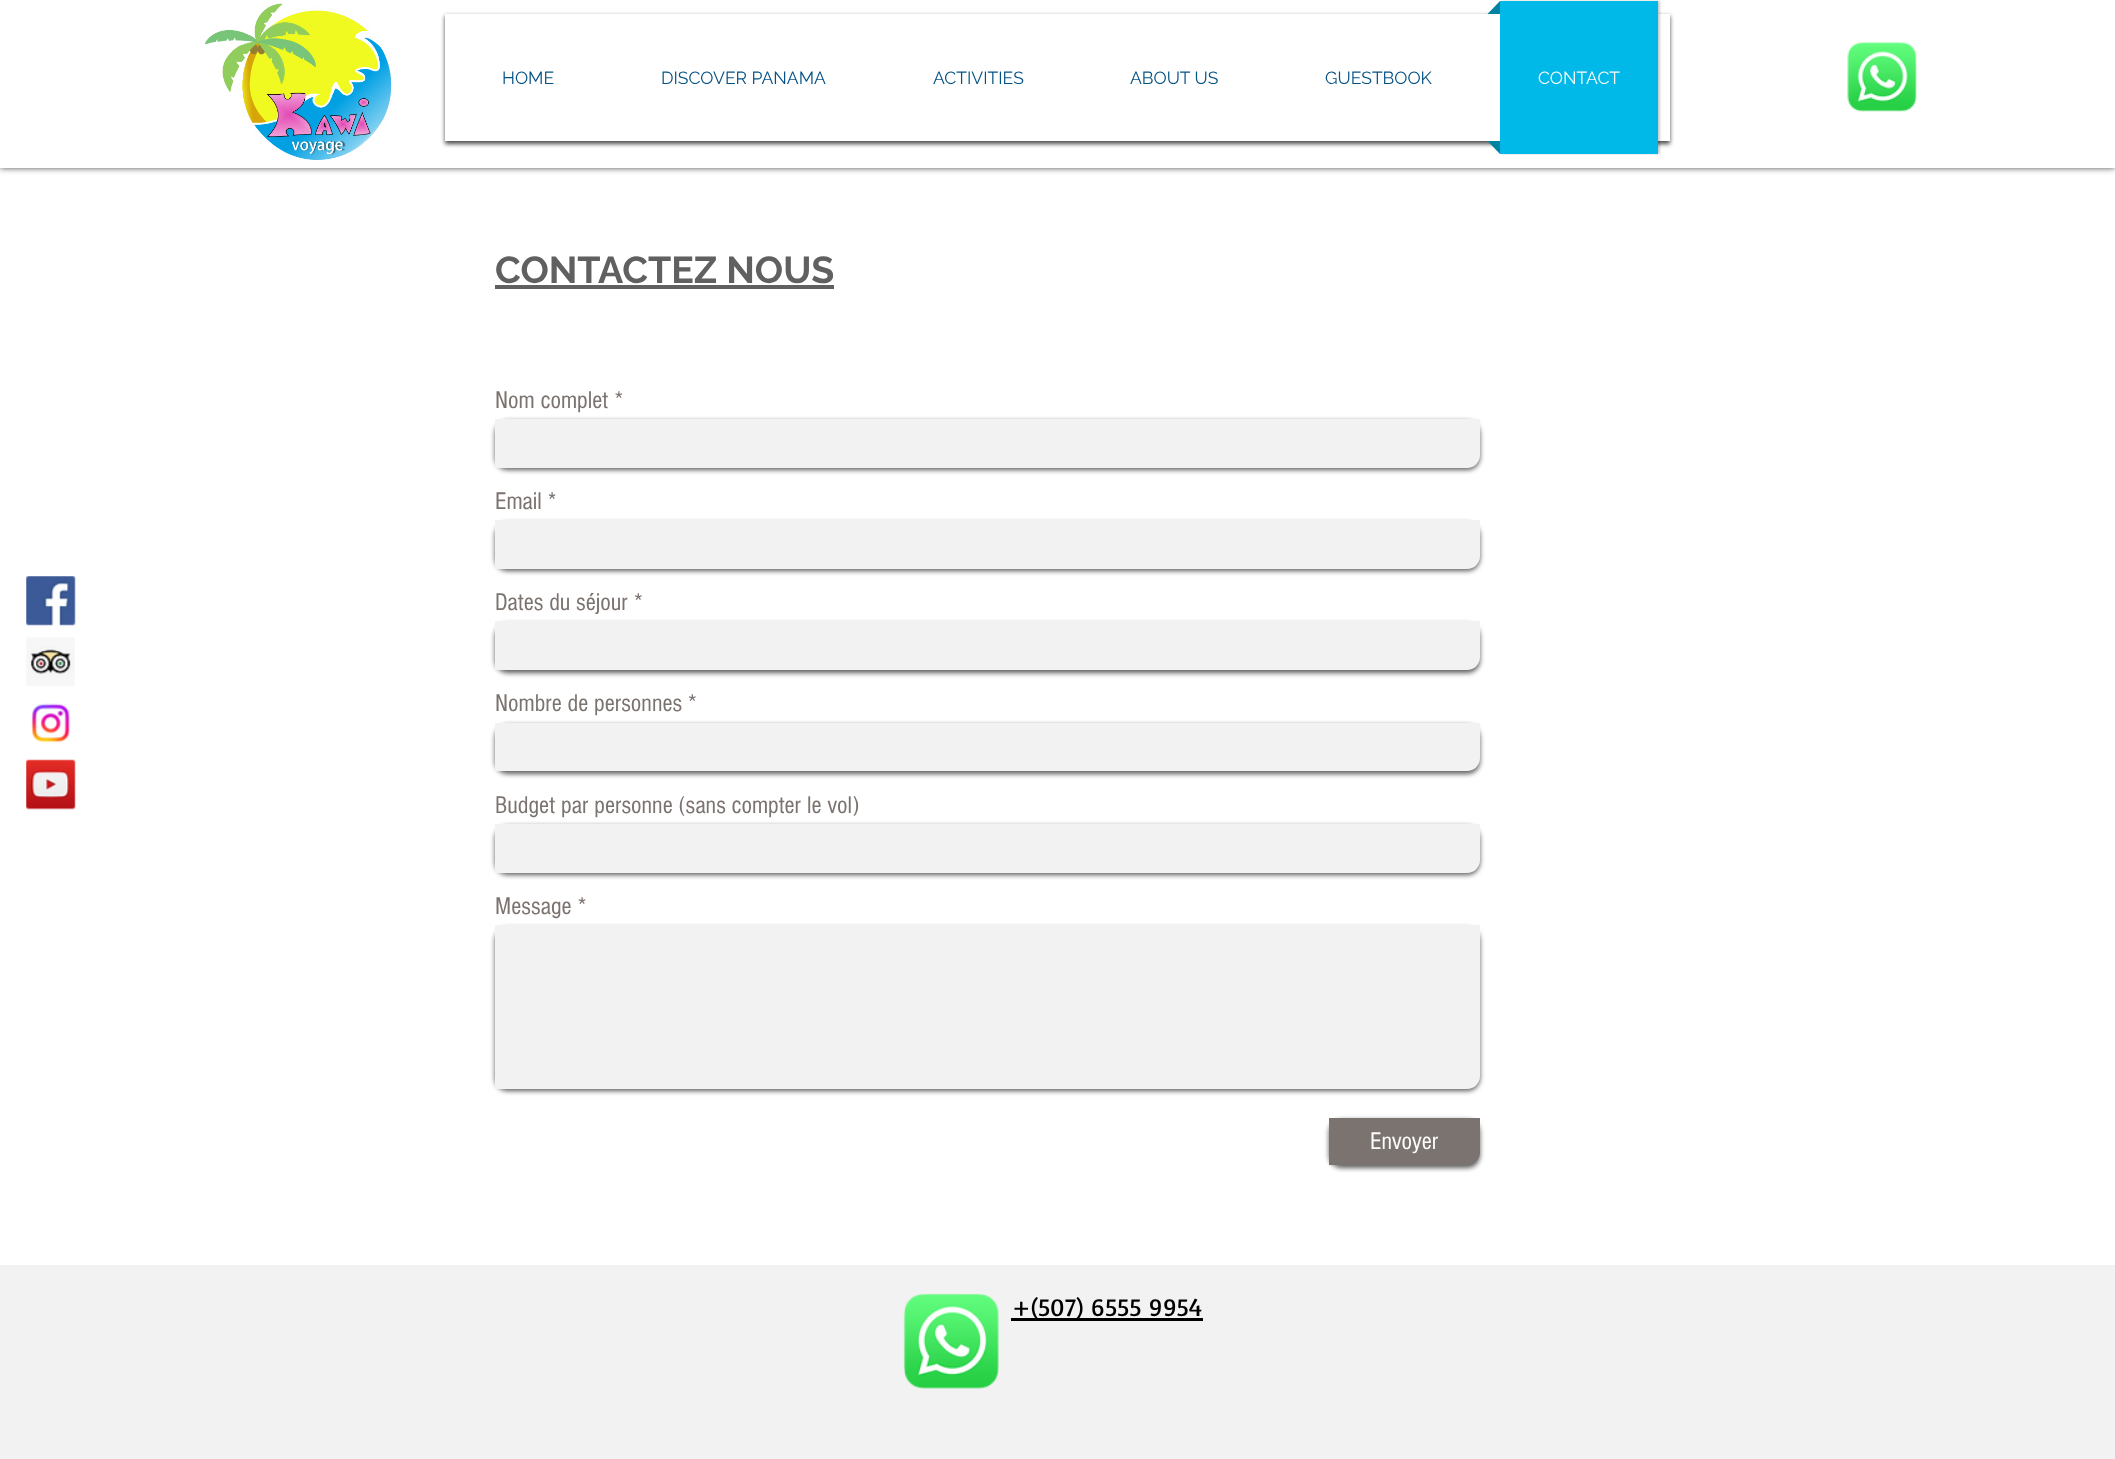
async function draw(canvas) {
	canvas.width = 2115;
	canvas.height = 1459;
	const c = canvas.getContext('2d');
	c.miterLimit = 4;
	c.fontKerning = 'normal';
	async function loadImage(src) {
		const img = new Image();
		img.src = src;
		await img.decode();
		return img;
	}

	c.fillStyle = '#fff';
	c.fillRect(0, 0, 2115, 1459);
	c.fillStyle = '#000000b3';
	c.filter = 'blur(3px)';
	c.beginPath();
	c.rect(0, 0, 2115, 168);
	c.fill();
	c.filter = 'none';
	c.fillStyle = '#fff';
	c.fillRect(0, 0, 2115, 168);
	c.drawImage(await loadImage('img1.png'), 205, 3, 190, 157);
	c.save();
	c.beginPath();
	c.moveTo(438, 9);
	c.lineTo(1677, 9);
	c.lineTo(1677, 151);
	c.lineTo(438, 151);
	c.closePath();
	c.moveTo(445, 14);
	c.lineTo(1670, 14);
	c.lineTo(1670, 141);
	c.lineTo(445, 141);
	c.closePath();
	c.clip('evenodd');
	c.fillStyle = '#000000b3';
	c.filter = 'blur(2px)';
	c.beginPath();
	c.rect(445, 16, 1225, 128);
	c.fill();
	c.filter = 'none';
	c.restore();
	c.font = '17.5px Raleway';
	c.fillStyle = '#045184';
	for (const [text, x, y] of [
		['HOME', 502, 84],
		['DISCOVER PANAMA', 661, 84],
		['ACTIVITIES', 933, 84],
		['ABOUT US', 1130, 84],
		['GUESTBOOK', 1325, 84],
	]) {
		c.fillText(text, x, y);
	}
	c.fillStyle = '#00000033';
	c.filter = 'blur(1px)';
	c.beginPath();
	c.rect(1503, 1, 157, 153);
	c.fill();
	c.filter = 'none';
	c.fillStyle = '#0082a2';
	c.beginPath();
	c.moveTo(1500, 14);
	c.lineTo(1487.5, 14);
	c.lineTo(1500, 1);
	c.closePath();
	c.fill();
	c.fillStyle = '#00b9e8';
	c.fillRect(1500, 1, 158, 153);
	c.fillStyle = '#0082a2';
	c.beginPath();
	c.moveTo(1487.5, 141);
	c.lineTo(1500, 141);
	c.lineTo(1500, 154);
	c.closePath();
	c.fill();
	c.fillStyle = '#fcfcfc';
	c.fillText('CONTACT', 1538, 84);
	c.drawImage(await loadImage('img2.png'), 1847, 42, 70, 70);
	c.drawImage(await loadImage('img3.png'), 26, 576, 50, 50);
	c.drawImage(await loadImage('img4.png'), 26, 637, 49, 49);
	c.drawImage(await loadImage('img5.png'), 31, 703, 40, 40);
	c.drawImage(await loadImage('img6.png'), 26, 759, 50, 51);
	c.font = 'bold 37.5px Raleway';
	c.fillStyle = '#606060';
	c.fillText('CONTACTEZ NOUS', 495, 283);
	c.fillRect(495, 285, 339, 4);
	c.font = '25px "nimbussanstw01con"';
	c.fillStyle = '#7b736f';
	c.fillText('Nom complet *', 495, 408);
	c.fillStyle = '#000000a1';
	c.filter = 'blur(2.5px)';
	c.beginPath();
	c.roundRect(495, 421, 985, 49, 13);
	c.fill();
	c.filter = 'none';
	c.fillStyle = '#f2f2f2';
	c.beginPath();
	c.roundRect(495, 419, 985, 49, [0, 0, 13, 0]);
	c.fill();
	c.fillStyle = '#7b736f';
	c.fillText('Email *', 495, 509);
	c.fillStyle = '#000000a1';
	c.filter = 'blur(2.5px)';
	c.beginPath();
	c.roundRect(495, 523, 985, 48, 13);
	c.fill();
	c.filter = 'none';
	c.fillStyle = '#f2f2f2';
	c.beginPath();
	c.roundRect(495, 520, 985, 49, [0, 0, 13, 0]);
	c.fill();
	c.fillStyle = '#7b736f';
	c.fillText('Dates du séjour *', 495, 610);
	c.fillStyle = '#000000a1';
	c.filter = 'blur(2.5px)';
	c.beginPath();
	c.roundRect(495, 624, 985, 49, 13);
	c.fill();
	c.filter = 'none';
	c.fillStyle = '#f2f2f2';
	c.beginPath();
	c.roundRect(495, 621, 985, 49, [0, 0, 13, 0]);
	c.fill();
	c.fillStyle = '#7b736f';
	c.fillText('Nombre de personnes *', 495, 711);
	c.fillStyle = '#000000a1';
	c.filter = 'blur(2.5px)';
	c.beginPath();
	c.roundRect(495, 725, 985, 49, 13);
	c.fill();
	c.filter = 'none';
	c.fillStyle = '#f2f2f2';
	c.beginPath();
	c.roundRect(495, 723, 985, 48, [0, 0, 13, 0]);
	c.fill();
	c.fillStyle = '#7b736f';
	c.fillText('Budget par personne (sans compter le vol)', 495, 813);
	c.fillStyle = '#000000a1';
	c.filter = 'blur(2.5px)';
	c.beginPath();
	c.roundRect(495, 826, 985, 49, 13);
	c.fill();
	c.filter = 'none';
	c.fillStyle = '#f2f2f2';
	c.beginPath();
	c.roundRect(495, 824, 985, 49, [0, 0, 13, 0]);
	c.fill();
	c.fillStyle = '#7b736f';
	c.fillText('Message *', 495, 914);
	c.fillStyle = '#000000a1';
	c.filter = 'blur(2.5px)';
	c.beginPath();
	c.roundRect(495, 928, 985, 163, 13);
	c.fill();
	c.filter = 'none';
	c.fillStyle = '#f2f2f2';
	c.beginPath();
	c.roundRect(495, 925, 985, 164, [0, 0, 13, 0]);
	c.fill();
	c.fillStyle = '#000000a1';
	c.filter = 'blur(2.5px)';
	c.beginPath();
	c.roundRect(1329, 1120, 151, 48, 13);
	c.fill();
	c.filter = 'none';
	c.fillStyle = '#7b736f';
	c.beginPath();
	c.roundRect(1329, 1118, 151, 47, [0, 0, 13, 0]);
	c.fill();
	c.fillStyle = '#fcfcfc';
	c.fillText('Envoyer', 1370, 1149);
	c.fillStyle = '#f2f2f2';
	c.fillRect(0, 1265, 2115, 194);
	c.drawImage(await loadImage('img7.png'), 903, 1293, 96, 96);
	c.fillStyle = '#000';
	c.fillRect(1011, 1318, 192, 3);
	c.font = '25px Basic';
	c.fillText('+(507) 6555 9954', 1012, 1316);
}

draw(document.querySelector('canvas'));
